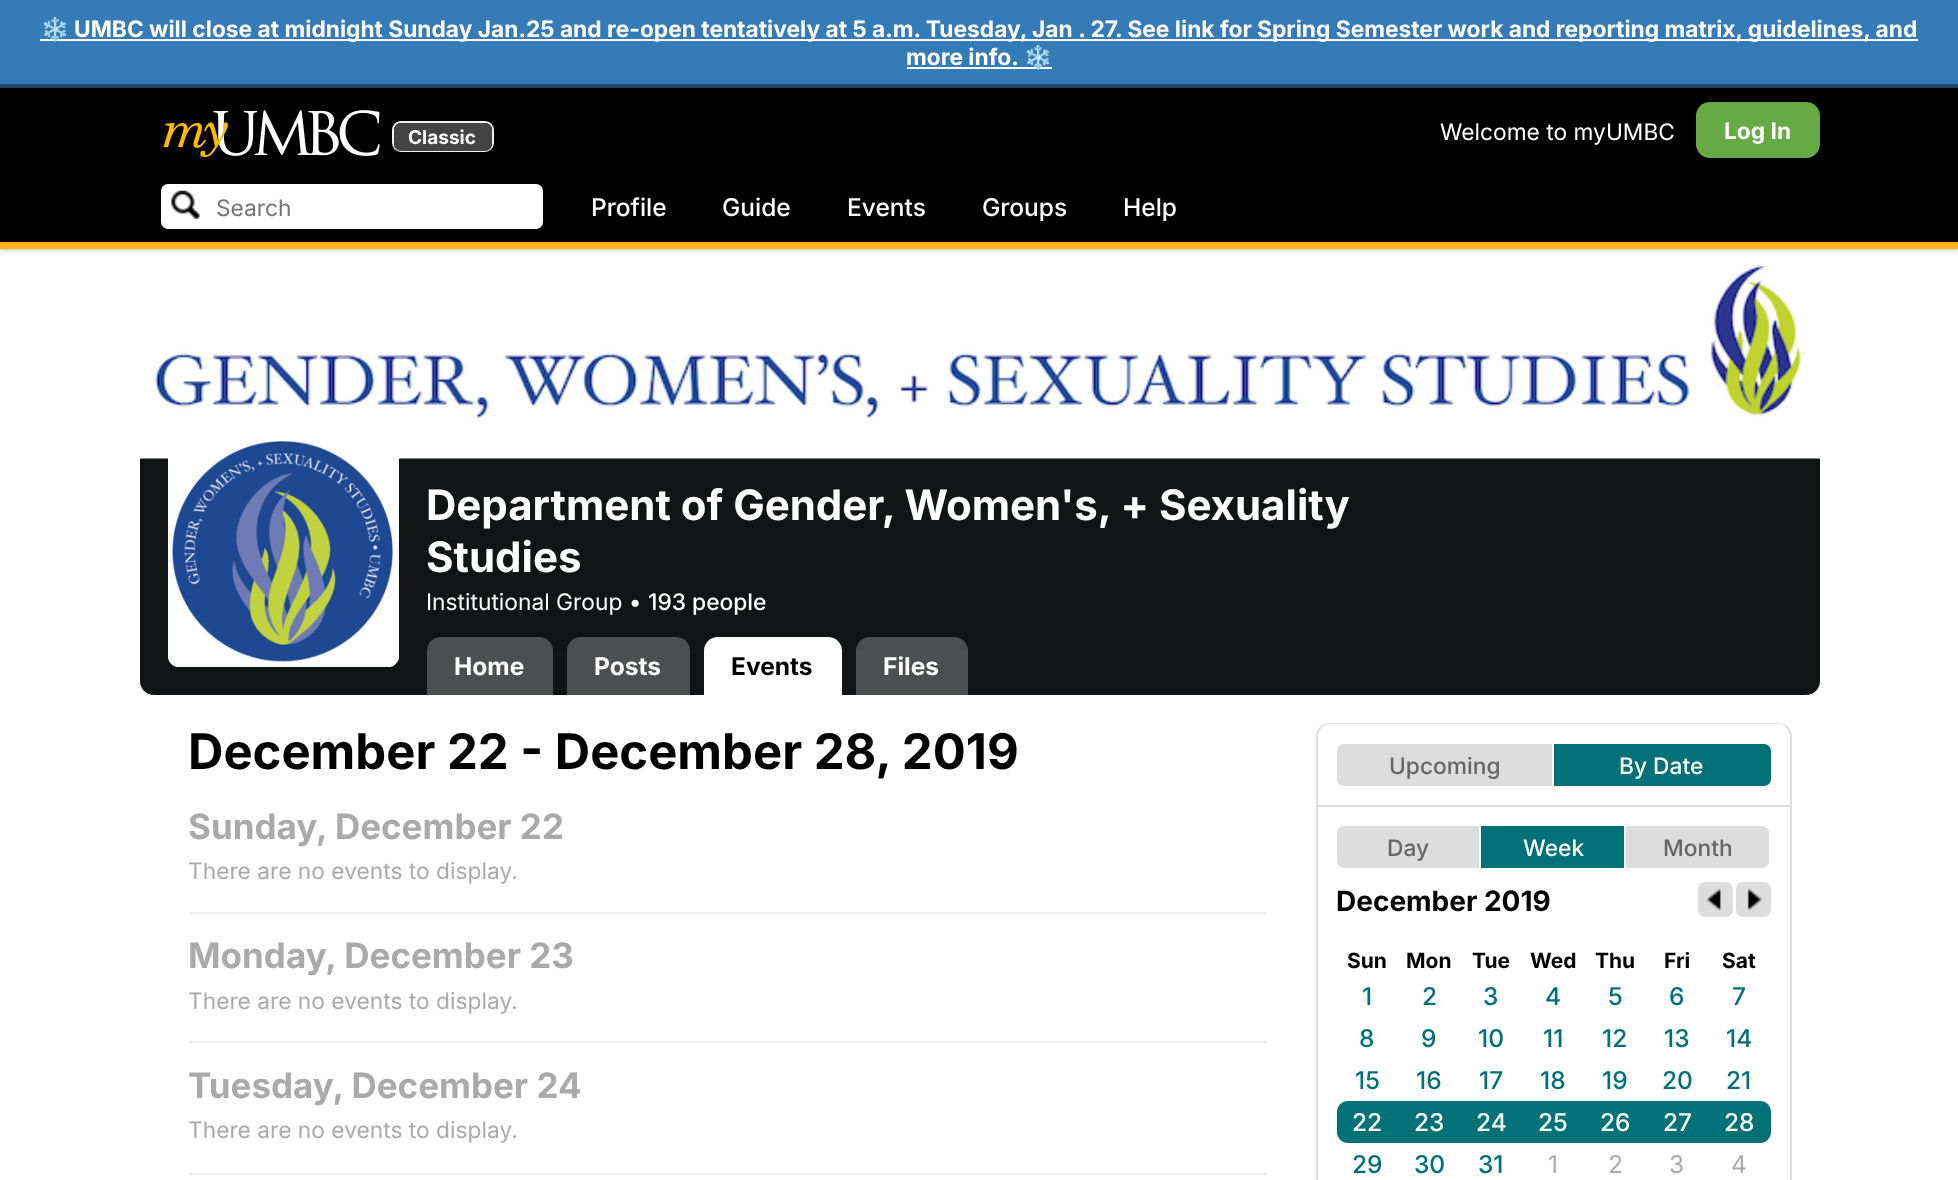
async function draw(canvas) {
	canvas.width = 1958;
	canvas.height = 1180;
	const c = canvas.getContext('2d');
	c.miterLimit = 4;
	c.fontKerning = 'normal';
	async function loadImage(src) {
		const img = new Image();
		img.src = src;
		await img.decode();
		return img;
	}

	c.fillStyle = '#fff';
	c.fillRect(0, 0, 1958, 1180);
	for (const [x, y, w, h, color] of [
		[0, 0, 1958, 84, '#357bb8'],
		[0, 84, 1958, 4, '#204b70'],
		[40, 39, 1878, 2, '#fff'],
	]) {
		c.fillStyle = color;
		c.fillRect(x, y, w, h);
	}
	c.font = 'bold 22.75px Noto Color Emoji';
	c.fillText('❄️', 41, 37);
	c.font = 'bold 22.75px Inter';
	c.fillText('UMBC will close at midnight Sunday Jan.25 and re-open tentatively at 5 a.m. Tuesday, Jan . 27. See link for Spring Semester work and reporting matrix, guidelines, and', 74, 37);
	c.fillText('more info.', 906, 65);
	c.fillRect(907, 67, 145, 2);
	c.font = 'bold 22.75px Noto Color Emoji';
	c.fillText('❄️', 1024, 65);
	c.fillStyle = '#111315';
	c.fillRect(140, 458, 1680, 169);
	c.drawImage(await loadImage('img3.png'), 140, 249, 1680, 210);
	c.fillStyle = '#0000003d';
	c.filter = 'blur(2px)';
	c.beginPath();
	c.rect(0, 89, 1958, 161);
	c.fill();
	c.filter = 'none';
	c.fillStyle = '#000';
	c.fillRect(0, 88, 1958, 154);
	c.fillStyle = '#fdb515';
	c.fillRect(0, 242, 1958, 7);
	c.drawImage(await loadImage('img1.png'), 163, 110, 217, 48);
	c.beginPath();
	c.roundRect(393, 122, 100, 29, 8);
	c.strokeStyle = '#f0f0f0';
	c.lineWidth = 2;
	c.stroke();
	c.fillStyle = '#444';
	c.beginPath();
	c.roundRect(394, 123, 98, 28, 7);
	c.fill();
	c.font = 'bold 19px Inter';
	c.fillStyle = '#fff';
	c.fillText('Classic', 408, 144);
	c.font = '22.75px Inter';
	c.fillText('Welcome to myUMBC', 1440, 140);
	c.fillStyle = '#6a4';
	c.beginPath();
	c.roundRect(1696, 102, 124, 56, 14);
	c.fill();
	c.font = 'bold 22.75px Inter';
	c.fillStyle = '#fff';
	c.fillText('Log In', 1724, 139);
	c.beginPath();
	c.roundRect(161, 184, 382, 45, 7);
	c.fill();
	c.drawImage(await loadImage('img2.png'), 171, 190, 29, 29);
	c.font = '22.75px Inter';
	c.fillStyle = '#757575';
	c.fillText('Search', 216, 216);
	c.font = '500 24.5px Inter';
	c.fillStyle = '#fff';
	for (const [text, x, y] of [
		['Profile', 591, 216],
		['Guide', 722, 216],
		['Events', 847, 216],
		['Groups', 982, 216],
		['Help', 1123, 216],
	]) {
		c.fillText(text, x, y);
	}
	c.fillStyle = '#111315';
	c.beginPath();
	c.roundRect(140, 627, 1680, 68, [0, 0, 14, 14]);
	c.fill();
	c.fillStyle = '#fff';
	c.beginPath();
	c.roundRect(168, 436, 231, 231, 11);
	c.fill();
	c.drawImage(await loadImage('img4.png'), 172, 441, 221, 221);
	c.beginPath();
	c.roundRect(170, 438, 227, 227, 9);
	c.strokeStyle = '#fff';
	c.lineWidth = 4;
	c.stroke();
	c.font = 'bold 42px Inter';
	c.fillText('Department of Gender, Women\'s, + Sexuality', 426, 520);
	c.fillText('Studies', 426, 572);
	c.font = '22.75px Inter';
	c.fillText('Institutional Group •', 426, 610);
	c.font = '500 22.75px Inter';
	c.fillText('193 people', 648, 610);
	c.fillStyle = '#4d4e50';
	c.beginPath();
	c.roundRect(427, 637, 126, 58, [14, 14, 0, 0]);
	c.fill();
	c.font = 'bold 24.5px Inter';
	c.fillStyle = '#fff';
	c.fillText('Home', 454, 675);
	c.fillStyle = '#4d4e50';
	c.beginPath();
	c.roundRect(567, 637, 123, 58, [14, 14, 0, 0]);
	c.fill();
	c.fillStyle = '#fff';
	c.fillText('Posts', 594, 675);
	c.beginPath();
	c.roundRect(704, 637, 138, 58, [14, 14, 0, 0]);
	c.fill();
	c.fillStyle = '#000';
	c.fillText('Events', 731, 675);
	c.fillStyle = '#4d4e50';
	c.beginPath();
	c.roundRect(856, 637, 112, 58, [14, 14, 0, 0]);
	c.fill();
	c.fillStyle = '#fff';
	c.fillText('Files', 883, 675);
	c.font = 'bold 49px Inter';
	c.fillStyle = '#000';
	c.fillText('December 22 - December 28, 2019', 188, 769);
	c.font = 'bold 35px Inter';
	c.fillStyle = '#aaa';
	c.fillText('Sunday, December 22', 188, 839);
	c.font = '22.75px Inter';
	c.fillText('There are no events to display.', 188, 879);
	c.fillStyle = '#eee';
	c.fillRect(189, 912, 1078, 2);
	c.font = 'bold 35px Inter';
	c.fillStyle = '#aaa';
	c.fillText('Monday, December 23', 188, 968);
	c.font = '22.75px Inter';
	c.fillText('There are no events to display.', 188, 1009);
	c.fillStyle = '#eee';
	c.fillRect(189, 1041, 1078, 2);
	c.font = 'bold 35px Inter';
	c.fillStyle = '#aaa';
	c.fillText('Tuesday, December 24', 188, 1098);
	c.font = '22.75px Inter';
	c.fillText('There are no events to display.', 188, 1138);
	c.fillStyle = '#eee';
	c.fillRect(189, 1173, 1078, 2);
	c.fillStyle = '#ddd';
	c.beginPath();
	c.moveTo(1330, 723);
	c.lineTo(1778, 723);
	c.bezierCurveTo(1786, 723, 1792, 729, 1792, 737);
	c.lineTo(1792, 805);
	c.lineTo(1316, 805);
	c.lineTo(1316, 737);
	c.bezierCurveTo(1316, 729, 1322, 723, 1330, 723);
	c.closePath();
	c.moveTo(1330, 724);
	c.lineTo(1778, 724);
	c.bezierCurveTo(1785, 724, 1790, 730, 1790, 737);
	c.lineTo(1790, 805);
	c.lineTo(1318, 805);
	c.lineTo(1318, 737);
	c.bezierCurveTo(1318, 730, 1323, 724, 1330, 724);
	c.closePath();
	c.fill('evenodd');
	c.beginPath();
	c.roundRect(1337, 744, 217, 42, [7, 0, 0, 7]);
	c.fill();
	c.font = '500 22.75px Inter';
	c.fillStyle = '#666';
	c.fillText('Upcoming', 1389, 774);
	c.fillStyle = '#fff';
	c.fillRect(1552, 744, 2, 42);
	c.fillStyle = '#007176';
	c.beginPath();
	c.roundRect(1554, 744, 217, 42, [0, 7, 7, 0]);
	c.fill();
	c.fillStyle = '#fff';
	c.fillText('By Date', 1619, 774);
	c.strokeStyle = '#ddd';
	c.lineWidth = 2;
	c.strokeRect(1317, 806, 474, 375);
	c.fillStyle = '#ddd';
	c.beginPath();
	c.roundRect(1337, 826, 144, 42, [7, 0, 0, 7]);
	c.fill();
	c.fillStyle = '#666';
	c.fillText('Day', 1387, 856);
	c.fillStyle = '#fff';
	c.fillRect(1479, 826, 2, 42);
	c.fillStyle = '#007176';
	c.fillRect(1481, 826, 143, 42);
	c.fillStyle = '#fff';
	c.fillText('Week', 1523, 856);
	c.fillStyle = '#ddd';
	c.beginPath();
	c.roundRect(1626, 826, 143, 42, [0, 7, 7, 0]);
	c.fill();
	c.fillStyle = '#666';
	c.fillText('Month', 1663, 856);
	c.font = 'bold 28px Inter';
	c.fillStyle = '#000';
	c.fillText('December 2019', 1336, 911);
	c.fillStyle = '#ddd';
	c.beginPath();
	c.roundRect(1698, 882, 35, 35, 7);
	c.fill();
	c.drawImage(await loadImage('img5.png'), 1706, 888, 15, 23);
	c.beginPath();
	c.roundRect(1736, 882, 35, 35, 7);
	c.fill();
	c.drawImage(await loadImage('img6.png'), 1747, 888, 16, 23);
	c.font = 'bold 21px Inter';
	c.fillStyle = '#000';
	for (const [text, x, y] of [
		['Sun', 1347, 968],
		['Mon', 1406, 968],
		['Tue', 1472, 968],
		['Wed', 1530, 968],
		['Thu', 1595, 968],
		['Fri', 1664, 968],
		['Sat', 1722, 968],
	]) {
		c.fillText(text, x, y);
	}
	c.font = '500 24.5px Inter';
	c.fillStyle = '#007176';
	for (const [text, x, y] of [
		['1', 1362, 1005],
		['2', 1422, 1005],
		['3', 1483, 1005],
		['4', 1545, 1005],
		['5', 1608, 1005],
		['6', 1669, 1005],
		['7', 1732, 1005],
		['8', 1359, 1047],
		['9', 1421, 1047],
		['10', 1478, 1047],
		['11', 1543, 1047],
		['12', 1602, 1047],
		['13', 1664, 1047],
		['14', 1726, 1047],
		['15', 1355, 1089],
		['16', 1416, 1089],
		['17', 1479, 1089],
		['18', 1540, 1089],
		['19', 1602, 1089],
		['20', 1662, 1089],
		['21', 1726, 1089],
	]) {
		c.fillText(text, x, y);
	}
	c.beginPath();
	c.roundRect(1337, 1101, 61, 42, [11, 0, 0, 11]);
	c.fill();
	c.fillStyle = '#fff';
	c.fillText('22', 1352, 1131);
	c.fillStyle = '#007176';
	c.fillRect(1398, 1101, 310, 42);
	c.fillStyle = '#fff';
	for (const [text, x, y] of [
		['23', 1414, 1131],
		['24', 1476, 1131],
		['25', 1538, 1131],
		['26', 1600, 1131],
		['27', 1663, 1131],
	]) {
		c.fillText(text, x, y);
	}
	c.fillStyle = '#007176';
	c.beginPath();
	c.roundRect(1708, 1101, 63, 42, [0, 11, 11, 0]);
	c.fill();
	c.fillStyle = '#fff';
	c.fillText('28', 1724, 1131);
	c.fillStyle = '#007176';
	for (const [text, x, y] of [
		['29', 1352, 1173],
		['30', 1414, 1173],
		['31', 1478, 1173],
	]) {
		c.fillText(text, x, y);
	}
	c.font = '24.5px Inter';
	c.fillStyle = '#aaa';
	for (const [text, x, y] of [
		['1', 1548, 1173],
		['2', 1608, 1173],
		['3', 1669, 1173],
		['4', 1731, 1173],
	]) {
		c.fillText(text, x, y);
	}
}

draw(document.querySelector('canvas'));
